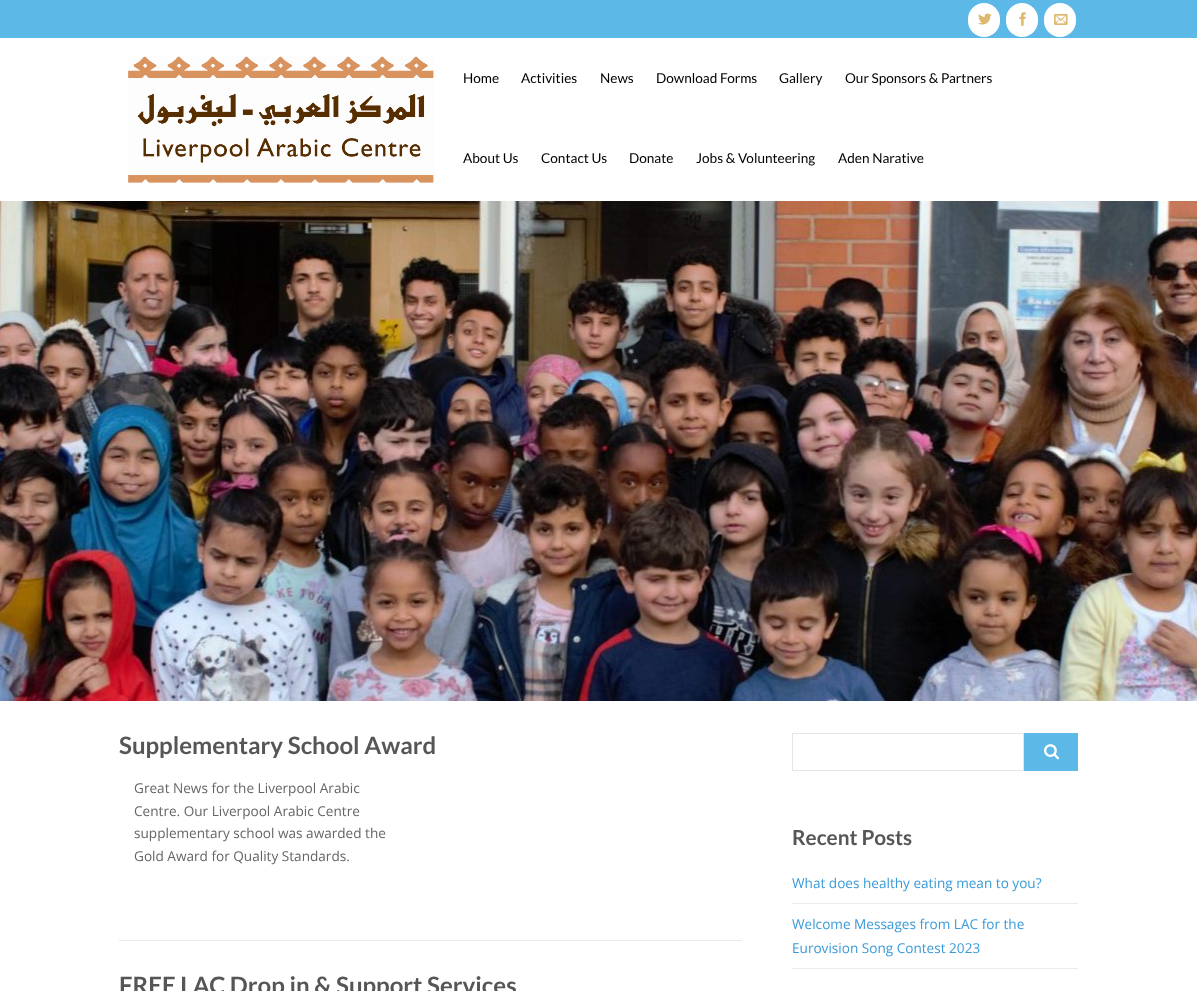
async function draw(canvas) {
	canvas.width = 1197;
	canvas.height = 991;
	const c = canvas.getContext('2d');
	c.miterLimit = 4;
	c.fontKerning = 'normal';
	async function loadImage(src) {
		const img = new Image();
		img.src = src;
		await img.decode();
		return img;
	}

	c.fillStyle = '#fff';
	c.fillRect(0, 0, 1197, 991);
	c.fillStyle = '#5cb8e7';
	c.fillRect(0, 0, 1197, 38);
	c.fillStyle = '#fff';
	c.beginPath();
	c.roundRect(968, 3, 32, 34, 16);
	c.fill();
	c.drawImage(await loadImage('img1.png'), 978, 13, 14, 12);
	c.beginPath();
	c.roundRect(1006, 3, 32, 34, 16);
	c.fill();
	c.drawImage(await loadImage('img2.png'), 1019, 12, 7, 14);
	c.beginPath();
	c.roundRect(1044, 3, 32, 34, 16);
	c.fill();
	c.drawImage(await loadImage('img3.png'), 1054, 13, 14, 12);
	c.drawImage(await loadImage('img4.png'), 128, 56, 306, 127);
	c.font = '13.6px Lato';
	c.fillStyle = '#000';
	for (const [text, x, y] of [
		['Home', 463, 83],
		['Activities', 521, 83],
		['News', 600, 83],
		['Download Forms', 656, 83],
		['Gallery', 779, 83],
		['Our Sponsors & Partners', 845, 83],
		['About Us', 463, 163],
		['Contact Us', 541, 163],
		['Donate', 629, 163],
		['Jobs & Volunteering', 696, 163],
		['Aden Narative', 838, 163],
	]) {
		c.fillText(text, x, y);
	}
	c.drawImage(await loadImage('img5.png'), 0, 201, 1197, 500);
	c.fillStyle = '#eaeaea';
	c.fillRect(119, 940, 623, 1);
	c.font = 'bold 24px Lato';
	c.fillStyle = '#565656';
	c.fillText('Supplementary School Award', 119, 754);
	c.font = '13.6px Open Sans';
	c.fillStyle = '#656565';
	for (const [text, x, y] of [
		['Great News for the Liverpool Arabic', 134, 793],
		['Centre. Our Liverpool Arabic Centre', 134, 816],
		['supplementary school was awarded the', 134, 838],
		['Gold Award for Quality Standards.', 134, 861],
	]) {
		c.fillText(text, x, y);
	}
	c.font = 'bold 24px Lato';
	c.fillStyle = '#565656';
	c.fillText('FREE LAC Drop in & Support Services', 119, 994);
	c.strokeStyle = '#e2e5e7';
	c.strokeRect(792.5, 733.5, 231, 37);
	c.fillStyle = '#5cb8e7';
	c.fillRect(1024, 733, 54, 38);
	c.drawImage(await loadImage('img6.png'), 1044, 744, 16, 16);
	c.font = 'bold 20.75px Lato';
	c.fillStyle = '#565656';
	c.fillText('Recent Posts', 792, 845);
	c.fillStyle = '#eaeaea';
	c.fillRect(792, 903, 286, 1);
	c.font = '13.6px Open Sans';
	c.fillStyle = '#3a9ad9';
	c.fillText('What does healthy eating mean to you?', 792, 888);
	c.fillStyle = '#eaeaea';
	c.fillRect(792, 968, 286, 1);
	c.fillStyle = '#3a9ad9';
	c.fillText('Welcome Messages from LAC for the', 792, 929);
	c.fillText('Eurovision Song Contest 2023', 792, 953);
}

draw(document.querySelector('canvas'));
